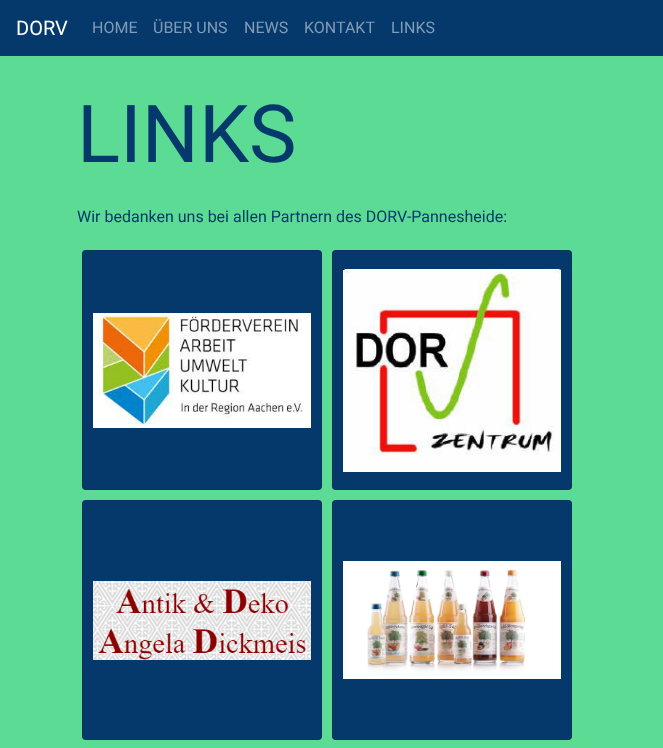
async function draw(canvas) {
	canvas.width = 663;
	canvas.height = 748;
	const c = canvas.getContext('2d');
	c.miterLimit = 4;
	c.fontKerning = 'normal';
	async function loadImage(src) {
		const img = new Image();
		img.src = src;
		await img.decode();
		return img;
	}

	c.fillStyle = '#5cdb95';
	c.fillRect(0, 0, 663, 748);
	c.fillStyle = '#05386b';
	c.fillRect(0, 0, 663, 56);
	c.font = '20px Roboto';
	c.fillStyle = '#fff';
	c.fillText('DORV', 16, 35);
	c.font = '16px Roboto';
	c.fillStyle = '#829cb5';
	for (const [text, x, y] of [
		['HOME', 92, 33],
		['ÜBER UNS', 153, 33],
		['NEWS', 244, 33],
		['KONTAKT', 304, 33],
		['LINKS', 391, 33],
	]) {
		c.fillText(text, x, y);
	}
	c.font = '80px Roboto';
	c.fillStyle = '#05386b';
	c.fillText('LINKS', 77, 162);
	c.font = '16px Roboto';
	c.fillText('Wir bedanken uns bei allen Partnern des DORV-Pannesheide:', 77, 222);
	c.beginPath();
	c.roundRect(82, 250, 240, 240, 4);
	c.fill();
	c.beginPath();
	c.roundRect(82.5, 250.5, 239, 239, 3.5);
	c.strokeStyle = '#0000001f';
	c.stroke();
	c.drawImage(await loadImage('img1.png'), 93, 313, 218, 115);
	c.beginPath();
	c.roundRect(332, 250, 240, 240, 4);
	c.fill();
	c.beginPath();
	c.roundRect(332.5, 250.5, 239, 239, 3.5);
	c.stroke();
	c.drawImage(await loadImage('img2.png'), 343, 269, 218, 203);
	c.beginPath();
	c.roundRect(82, 500, 240, 240, 4);
	c.fill();
	c.beginPath();
	c.roundRect(82.5, 500.5, 239, 239, 3.5);
	c.stroke();
	c.drawImage(await loadImage('img3.png'), 93, 581, 218, 79);
	c.beginPath();
	c.roundRect(332, 500, 240, 240, 4);
	c.fill();
	c.beginPath();
	c.roundRect(332.5, 500.5, 239, 239, 3.5);
	c.stroke();
	c.drawImage(await loadImage('img4.png'), 343, 561, 218, 118);
}

draw(document.querySelector('canvas'));
